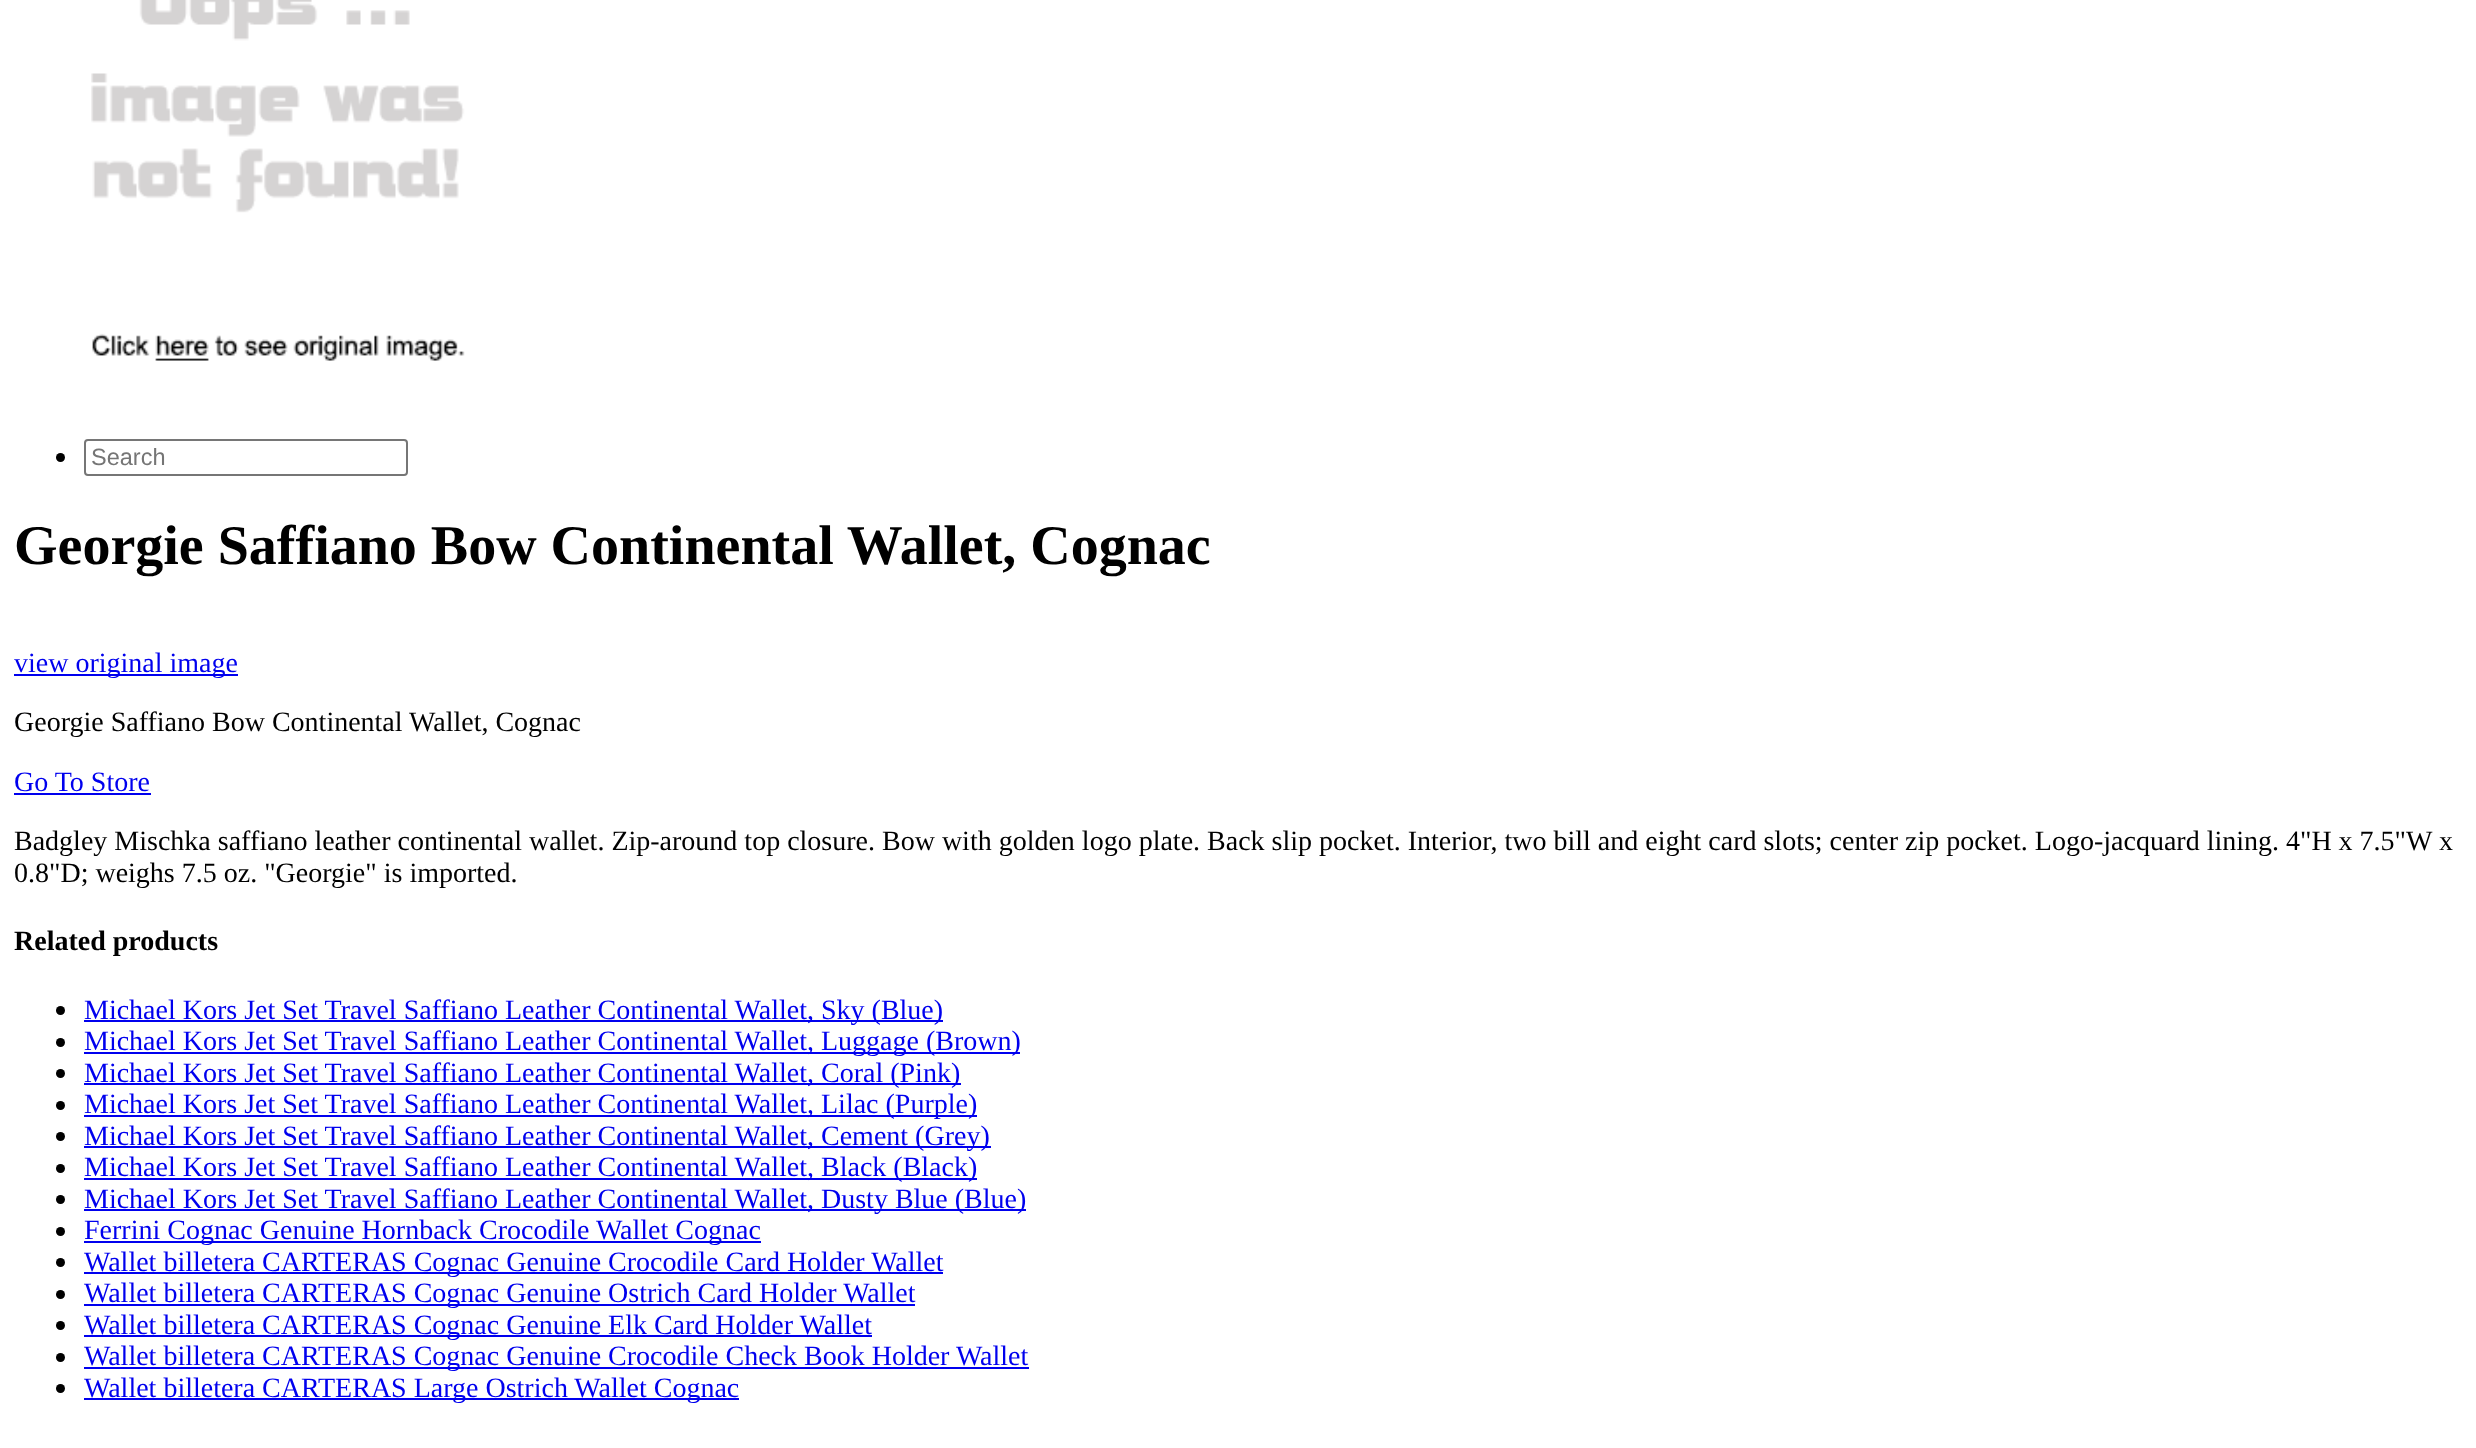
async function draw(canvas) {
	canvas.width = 2476;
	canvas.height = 1448;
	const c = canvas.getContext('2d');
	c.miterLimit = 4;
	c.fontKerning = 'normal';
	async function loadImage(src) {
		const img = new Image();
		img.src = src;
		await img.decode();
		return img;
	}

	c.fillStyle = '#fff';
	c.fillRect(0, 0, 2476, 1448);
	c.drawImage(await loadImage('img1.png'), 91, 0, 374, 361);
	c.fillStyle = '#000';
	c.beginPath();
	c.arc(60.5, 457.5, 4.5, 0, 2 * Math.PI);
	c.fill();
	c.beginPath();
	c.roundRect(85, 440, 322, 35, 3);
	c.strokeStyle = '#767676';
	c.lineWidth = 2;
	c.stroke();
	c.font = '23.5px Liberation Sans';
	c.fillStyle = '#757575';
	c.fillText('Search', 91, 465);
	c.font = 'bold 56px Liberation Serif';
	c.fillStyle = '#000';
	c.fillText('Georgie Saffiano Bow Continental Wallet, Cognac', 14, 564);
	c.fillStyle = '#00e';
	c.fillRect(14, 674, 224, 2);
	c.font = '28px Liberation Serif';
	c.fillText('view original image', 14, 672);
	c.fillStyle = '#000';
	c.fillText('Georgie Saffiano Bow Continental Wallet, Cognac', 14, 731);
	c.fillStyle = '#00e';
	c.fillText('Go To Store', 14, 791);
	c.fillRect(14, 793, 137, 2);
	c.fillStyle = '#000';
	c.fillText('Badgley Mischka saffiano leather continental wallet. Zip-around top closure. Bow with golden logo plate. Back slip pocket. Interior, two bill and eight card slots; center zip pocket. Logo-jacquard lining. 4"H x 7.5"W x', 14, 850);
	c.fillText('0.8"D; weighs 7.5 oz. "Georgie" is imported.', 14, 882);
	c.font = 'bold 28px Liberation Serif';
	c.fillText('Related products', 14, 950);
	c.beginPath();
	c.arc(60.5, 1010.5, 4.5, 0, 2 * Math.PI);
	c.fill();
	c.fillStyle = '#00e';
	c.fillRect(84, 1020, 859, 2);
	c.font = '28px Liberation Serif';
	c.fillText('Michael Kors Jet Set Travel Saffiano Leather Continental Wallet, Sky (Blue)', 84, 1019);
	c.fillStyle = '#000';
	c.beginPath();
	c.arc(60.5, 1042.5, 4.5, 0, 2 * Math.PI);
	c.fill();
	c.fillStyle = '#00e';
	c.fillRect(84, 1052, 936, 2);
	c.fillText('Michael Kors Jet Set Travel Saffiano Leather Continental Wallet, Luggage (Brown)', 84, 1050);
	c.fillStyle = '#000';
	c.beginPath();
	c.arc(60.5, 1073.5, 4.5, 0, 2 * Math.PI);
	c.fill();
	c.fillStyle = '#00e';
	c.fillRect(84, 1083, 877, 2);
	c.fillText('Michael Kors Jet Set Travel Saffiano Leather Continental Wallet, Coral (Pink)', 84, 1082);
	c.fillStyle = '#000';
	c.beginPath();
	c.arc(60.5, 1105.5, 4.5, 0, 2 * Math.PI);
	c.fill();
	c.fillStyle = '#00e';
	c.fillRect(84, 1115, 893, 2);
	c.fillText('Michael Kors Jet Set Travel Saffiano Leather Continental Wallet, Lilac (Purple)', 84, 1113);
	c.fillStyle = '#000';
	c.beginPath();
	c.arc(60.5, 1136.5, 4.5, 0, 2 * Math.PI);
	c.fill();
	c.fillStyle = '#00e';
	c.fillRect(84, 1146, 907, 2);
	c.fillText('Michael Kors Jet Set Travel Saffiano Leather Continental Wallet, Cement (Grey)', 84, 1145);
	c.fillStyle = '#000';
	c.beginPath();
	c.arc(60.5, 1168.5, 4.5, 0, 2 * Math.PI);
	c.fill();
	c.fillStyle = '#00e';
	c.fillRect(84, 1178, 893, 2);
	c.fillText('Michael Kors Jet Set Travel Saffiano Leather Continental Wallet, Black (Black)', 84, 1176);
	c.fillStyle = '#000';
	c.beginPath();
	c.arc(60.5, 1199.5, 4.5, 0, 2 * Math.PI);
	c.fill();
	c.fillStyle = '#00e';
	c.fillRect(84, 1209, 942, 2);
	c.fillText('Michael Kors Jet Set Travel Saffiano Leather Continental Wallet, Dusty Blue (Blue)', 84, 1208);
	c.fillStyle = '#000';
	c.beginPath();
	c.arc(60.5, 1231.5, 4.5, 0, 2 * Math.PI);
	c.fill();
	c.fillStyle = '#00e';
	c.fillRect(84, 1241, 677, 2);
	c.fillText('Ferrini Cognac Genuine Hornback Crocodile Wallet Cognac', 84, 1239);
	c.fillStyle = '#000';
	c.beginPath();
	c.arc(60.5, 1262.5, 4.5, 0, 2 * Math.PI);
	c.fill();
	c.fillStyle = '#00e';
	c.fillRect(84, 1272, 859, 2);
	c.fillText('Wallet billetera CARTERAS Cognac Genuine Crocodile Card Holder Wallet', 84, 1271);
	c.fillStyle = '#000';
	c.beginPath();
	c.arc(60.5, 1294.5, 4.5, 0, 2 * Math.PI);
	c.fill();
	c.fillStyle = '#00e';
	c.fillRect(84, 1304, 831, 2);
	c.fillText('Wallet billetera CARTERAS Cognac Genuine Ostrich Card Holder Wallet', 84, 1302);
	c.fillStyle = '#000';
	c.beginPath();
	c.arc(60.5, 1325.5, 4.5, 0, 2 * Math.PI);
	c.fill();
	c.fillStyle = '#00e';
	c.fillRect(84, 1335, 788, 2);
	c.fillText('Wallet billetera CARTERAS Cognac Genuine Elk Card Holder Wallet', 84, 1334);
	c.fillStyle = '#000';
	c.beginPath();
	c.arc(60.5, 1357.5, 4.5, 0, 2 * Math.PI);
	c.fill();
	c.fillStyle = '#00e';
	c.fillRect(84, 1367, 945, 2);
	c.fillText('Wallet billetera CARTERAS Cognac Genuine Crocodile Check Book Holder Wallet', 84, 1365);
	c.fillStyle = '#000';
	c.beginPath();
	c.arc(60.5, 1388.5, 4.5, 0, 2 * Math.PI);
	c.fill();
	c.fillStyle = '#00e';
	c.fillRect(84, 1398, 655, 2);
	c.fillText('Wallet billetera CARTERAS Large Ostrich Wallet Cognac', 84, 1397);
}

draw(document.querySelector('canvas'));
